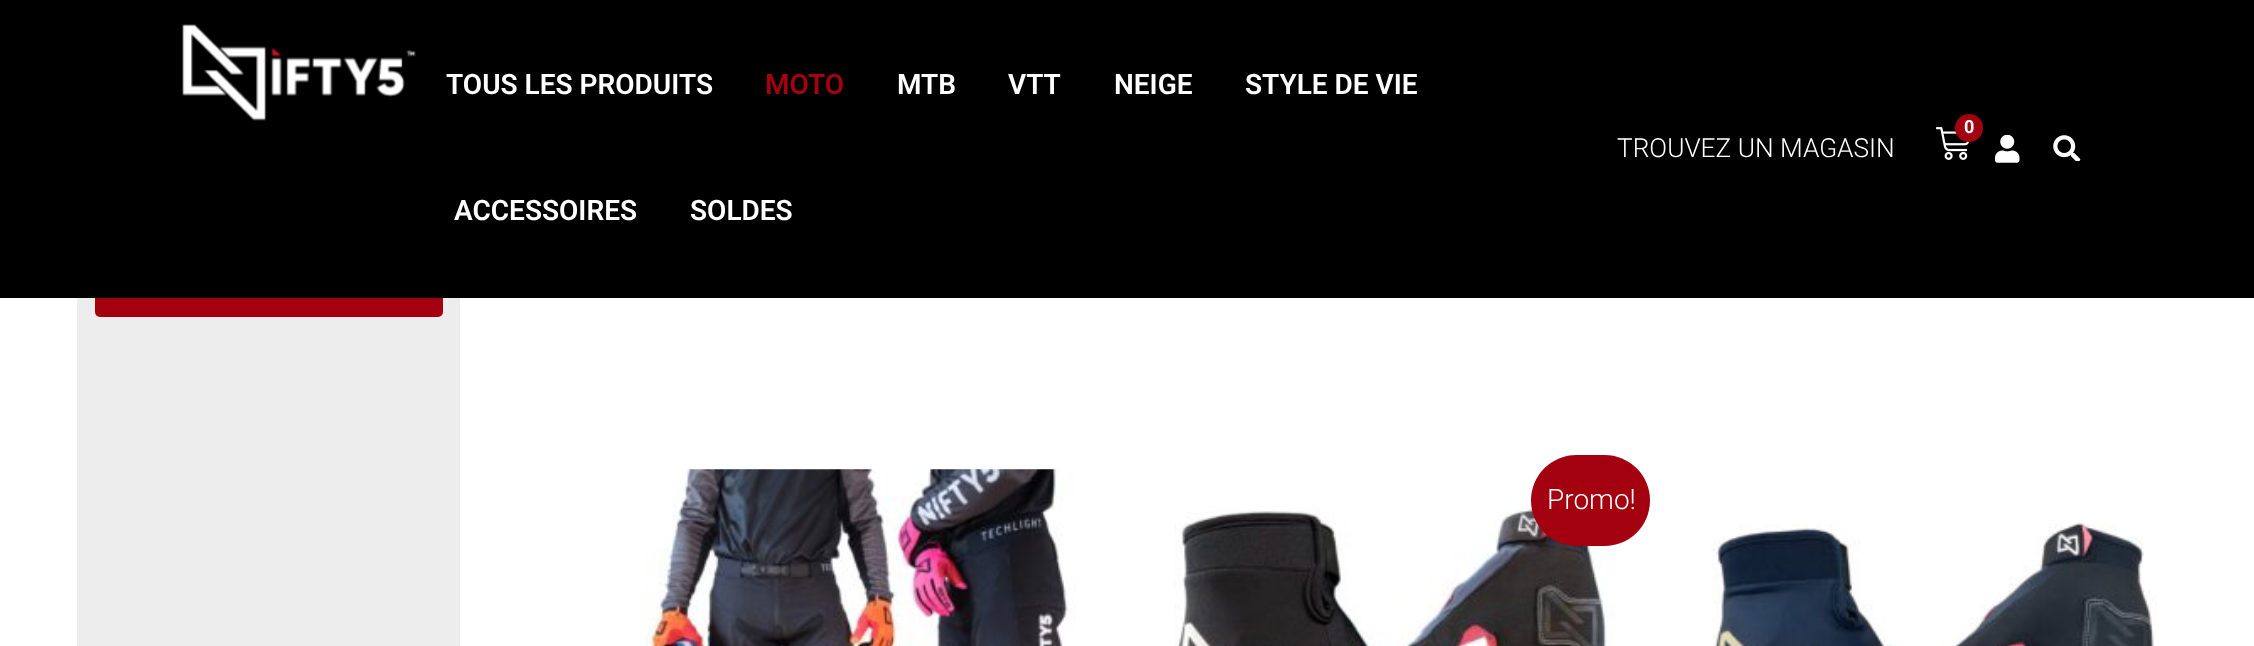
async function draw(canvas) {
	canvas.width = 2254;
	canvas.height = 646;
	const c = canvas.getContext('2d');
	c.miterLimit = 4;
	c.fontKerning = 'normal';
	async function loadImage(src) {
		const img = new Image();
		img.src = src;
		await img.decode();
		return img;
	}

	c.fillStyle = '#fff';
	c.fillRect(0, 0, 2254, 646);
	c.fillStyle = '#ededed';
	c.fillRect(77, 298, 383, 348);
	c.fillStyle = '#a30010';
	c.beginPath();
	c.roundRect(95, 212, 348, 105, 5);
	c.fill();
	c.fillStyle = '#000';
	c.fillRect(0, 0, 2254, 298);
	c.drawImage(await loadImage('img1.png'), 182, 24, 234, 97);
	c.font = '600 28px Roboto';
	c.fillStyle = '#fff';
	c.fillText('TOUS LES PRODUITS', 446, 94);
	c.fillStyle = '#a30010';
	c.fillText('MOTO', 765, 94);
	c.fillStyle = '#fff';
	for (const [text, x, y] of [
		['MTB', 897, 94],
		['VTT', 1008, 94],
		['NEIGE', 1114, 94],
		['STYLE DE VIE', 1245, 94],
		['ACCESSOIRES', 454, 220],
		['SOLDES', 690, 220],
	]) {
		c.fillText(text, x, y);
	}
	c.drawImage(await loadImage('img2.png'), 1936, 127, 34, 33);
	c.fillStyle = '#a30010';
	c.beginPath();
	c.arc(1969, 128, 14, 0, 2 * Math.PI);
	c.fill();
	c.font = 'bold 18px Roboto';
	c.fillStyle = '#fff';
	c.fillText('0', 1964, 133);
	c.font = '300 26.25px Roboto';
	c.fillText('TROUVEZ UN MAGASIN', 1617, 157);
	c.drawImage(await loadImage('img3.png'), 1995, 135, 25, 28);
	c.drawImage(await loadImage('img4.png'), 2053, 135, 28, 26);
	c.drawImage(await loadImage('img5.png'), 645, 469, 431, 177);
	c.drawImage(await loadImage('img6.png'), 1174, 496, 442, 150);
	c.fillStyle = '#a30010';
	c.beginPath();
	c.roundRect(1531, 455, 119, 91, 45.5);
	c.fill();
	c.font = '300 28px Roboto';
	c.fillStyle = '#fff';
	c.fillText('Promo!', 1547, 509);
	c.drawImage(await loadImage('img7.png'), 1711, 523, 446, 123);
}

draw(document.querySelector('canvas'));
